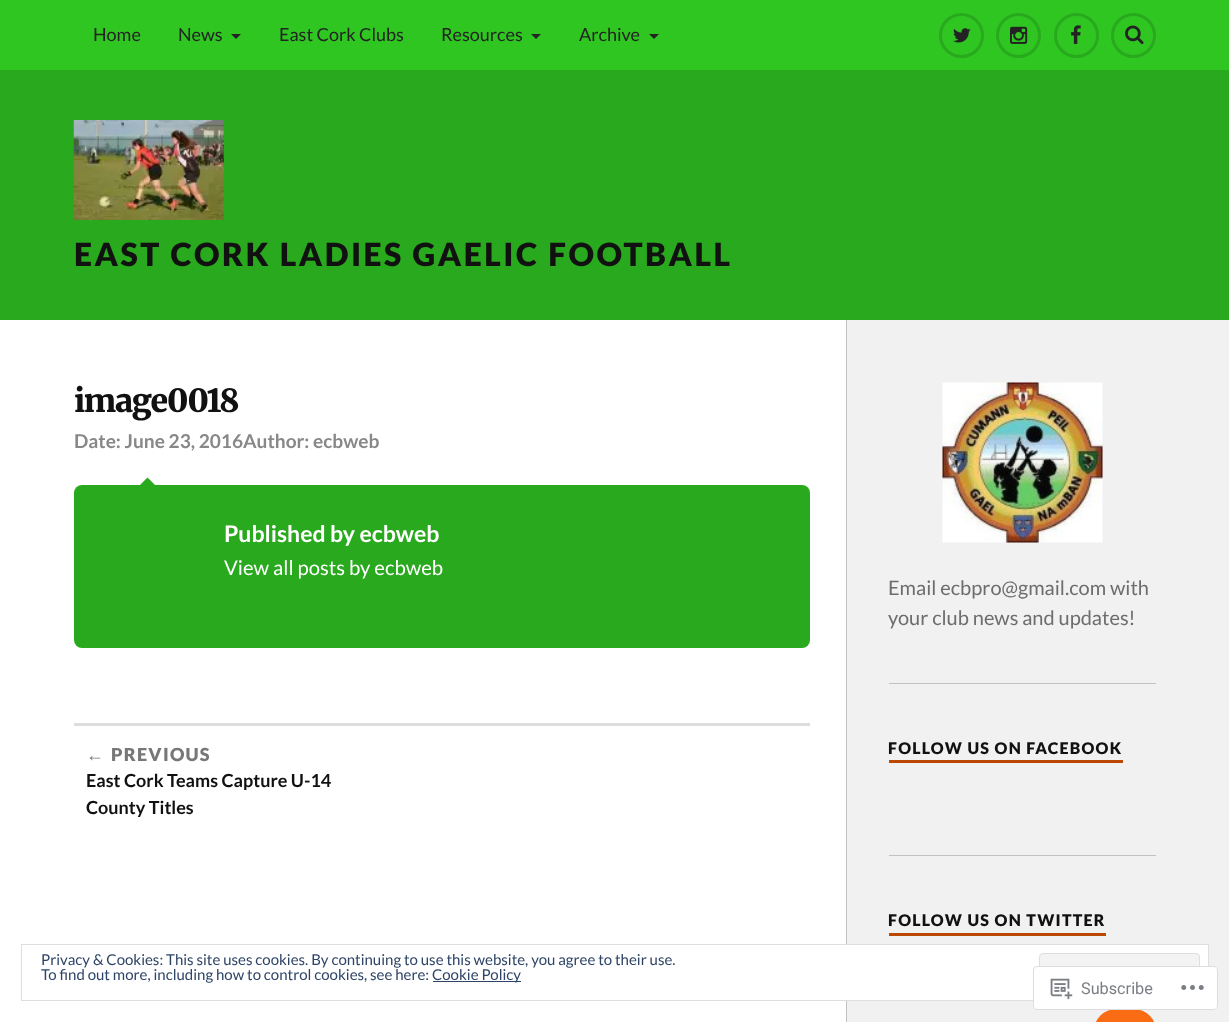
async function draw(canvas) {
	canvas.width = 1229;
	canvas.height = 1022;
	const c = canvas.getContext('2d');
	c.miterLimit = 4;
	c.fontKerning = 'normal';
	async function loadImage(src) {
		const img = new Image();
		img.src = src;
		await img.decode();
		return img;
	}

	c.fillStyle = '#f1f1f1';
	c.fillRect(0, 0, 1229, 1022);
	c.fillStyle = '#2fc621';
	c.fillRect(0, 0, 1229, 70);
	c.font = '18px Lato';
	c.fillStyle = '#232323';
	c.fillText('Home', 93, 41);
	c.fillText('News', 178, 41);
	c.beginPath();
	c.moveTo(231, 34);
	c.lineTo(241, 34);
	c.lineTo(236, 39);
	c.closePath();
	c.fill();
	c.fillText('East Cork Clubs', 279, 41);
	c.fillText('Resources', 441, 41);
	c.beginPath();
	c.moveTo(531, 34);
	c.lineTo(541, 34);
	c.lineTo(536, 39);
	c.closePath();
	c.fill();
	c.fillText('Archive', 579, 41);
	c.beginPath();
	c.moveTo(649, 34);
	c.lineTo(659, 34);
	c.lineTo(654, 39);
	c.closePath();
	c.fill();
	c.beginPath();
	c.arc(961.5, 35.5, 21, 0, 2 * Math.PI);
	c.strokeStyle = '#29a91d';
	c.lineWidth = 3;
	c.stroke();
	c.drawImage(await loadImage('img1.png'), 953, 28, 18, 15);
	c.beginPath();
	c.arc(1018.5, 35.5, 21, 0, 2 * Math.PI);
	c.stroke();
	c.drawImage(await loadImage('img2.png'), 1010, 26, 18, 18);
	c.beginPath();
	c.arc(1076.5, 35.5, 21, 0, 2 * Math.PI);
	c.stroke();
	c.drawImage(await loadImage('img3.png'), 1071, 25, 10, 19);
	c.beginPath();
	c.arc(1133.5, 35.5, 21, 0, 2 * Math.PI);
	c.stroke();
	c.drawImage(await loadImage('img4.png'), 1125, 25, 19, 20);
	c.fillStyle = '#29a91d';
	c.fillRect(0, 70, 1229, 250);
	c.drawImage(await loadImage('img5.png'), 73, 120, 151, 100);
	c.letterSpacing = '2.5px';
	c.font = '900 31.9px Lato';
	c.fillStyle = '#111';
	c.fillText('EAST CORK LADIES GAELIC FOOTBALL', 74, 266);
	c.fillStyle = '#fff';
	c.fillRect(0, 320, 846, 702);
	c.letterSpacing = '-1.25px';
	c.font = '900 31.9px Merriweather';
	c.fillStyle = '#111';
	c.fillText('image0018', 74, 412);
	c.letterSpacing = '0px';
	c.font = 'bold 19.1px Lato';
	c.fillStyle = '#888';
	c.fillText('Date: June 23, 2016Author: ecbweb', 74, 448);
	c.fillStyle = '#29a91d';
	c.beginPath();
	c.roundRect(74, 485, 736, 163, 8);
	c.fill();
	c.beginPath();
	c.moveTo(155, 485);
	c.lineTo(140, 485);
	c.lineTo(147.5, 477.5);
	c.closePath();
	c.fill();
	c.font = 'bold 23px Lato';
	c.fillStyle = '#fff';
	c.fillText('Published by ecbweb', 224, 542);
	c.font = '20.25px Lato';
	c.fillText('View all posts by ecbweb', 224, 575);
	c.fillStyle = '#ddd';
	c.fillRect(74, 723, 736, 3);
	c.letterSpacing = '1.25px';
	c.font = 'bold 18px Liberation Serif';
	c.fillStyle = '#777';
	c.fillText('←', 86, 761);
	c.font = '900 18px Lato';
	c.fillText('PREVIOUS', 111, 761);
	c.letterSpacing = '0px';
	c.font = 'bold 18px Lato';
	c.fillStyle = '#111';
	c.fillText('East Cork Teams Capture U-14', 86, 787);
	c.fillText('County Titles', 86, 814);
	c.fillStyle = '#c1c1c1';
	c.fillRect(846, 320, 1, 702);
	c.drawImage(await loadImage('img6.png'), 942, 382, 161, 161);
	c.font = '20px Lato';
	c.fillStyle = '#6d6d6d';
	c.fillText('Email ecbpro@gmail.com with', 888, 595);
	c.fillText('your club news and updates!', 888, 625);
	c.fillStyle = '#c1c1c1';
	c.fillRect(889, 683, 267, 1);
	c.fillStyle = '#bc4800';
	c.fillRect(889, 760, 234, 3);
	c.letterSpacing = '1.25px';
	c.font = '900 16px Lato';
	c.fillStyle = '#111';
	c.fillText('FOLLOW US ON FACEBOOK', 888, 754);
	c.fillStyle = '#c1c1c1';
	c.fillRect(889, 855, 267, 1);
	c.fillStyle = '#bc4800';
	c.fillRect(889, 933, 217, 3);
	c.fillStyle = '#111';
	c.fillText('FOLLOW US ON TWITTER', 888, 926);
	c.fillStyle = '#fff';
	c.fillRect(846, 945, 362, 55);
	c.strokeStyle = '#dedede';
	c.lineWidth = 1;
	c.strokeRect(21.5, 944.5, 1187, 56);
	c.letterSpacing = '0px';
	c.font = '15px Lato';
	c.fillStyle = '#2e4467';
	c.fillText('Privacy & Cookies: This site uses cookies. By continuing to use this website, you agree to their use.', 41, 965);
	c.fillStyle = '#f3f3f3';
	c.beginPath();
	c.roundRect(1039.5, 953.5, 160, 39, 3.5);
	c.fill();
	c.stroke();
	c.fillStyle = '#2e4467';
	c.fillText('To find out more, including how to control cookies, see here:', 41, 980);
	c.fillRect(433, 981, 88, 1);
	c.fillText('Cookie Policy', 432, 980);
	c.fillStyle = '#fa6c14';
	c.beginPath();
	c.roundRect(1094, 1009, 62, 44, 31);
	c.fill();
	c.fillStyle = '#fffffffa';
	c.beginPath();
	c.roundRect(1033, 966, 185, 44, 4);
	c.fill();
	c.beginPath();
	c.roundRect(1033.5, 966.5, 184, 43, 3.5);
	c.strokeStyle = '#dcdcdefa';
	c.stroke();
	c.drawImage(await loadImage('img7.png'), 1050, 978, 23, 22);
	c.font = '16.25px Roboto';
	c.fillStyle = '#7b7f84';
	c.fillText('Subscribe', 1081, 994);
	c.drawImage(await loadImage('img8.png'), 1181, 985, 23, 5);
}

draw(document.querySelector('canvas'));
